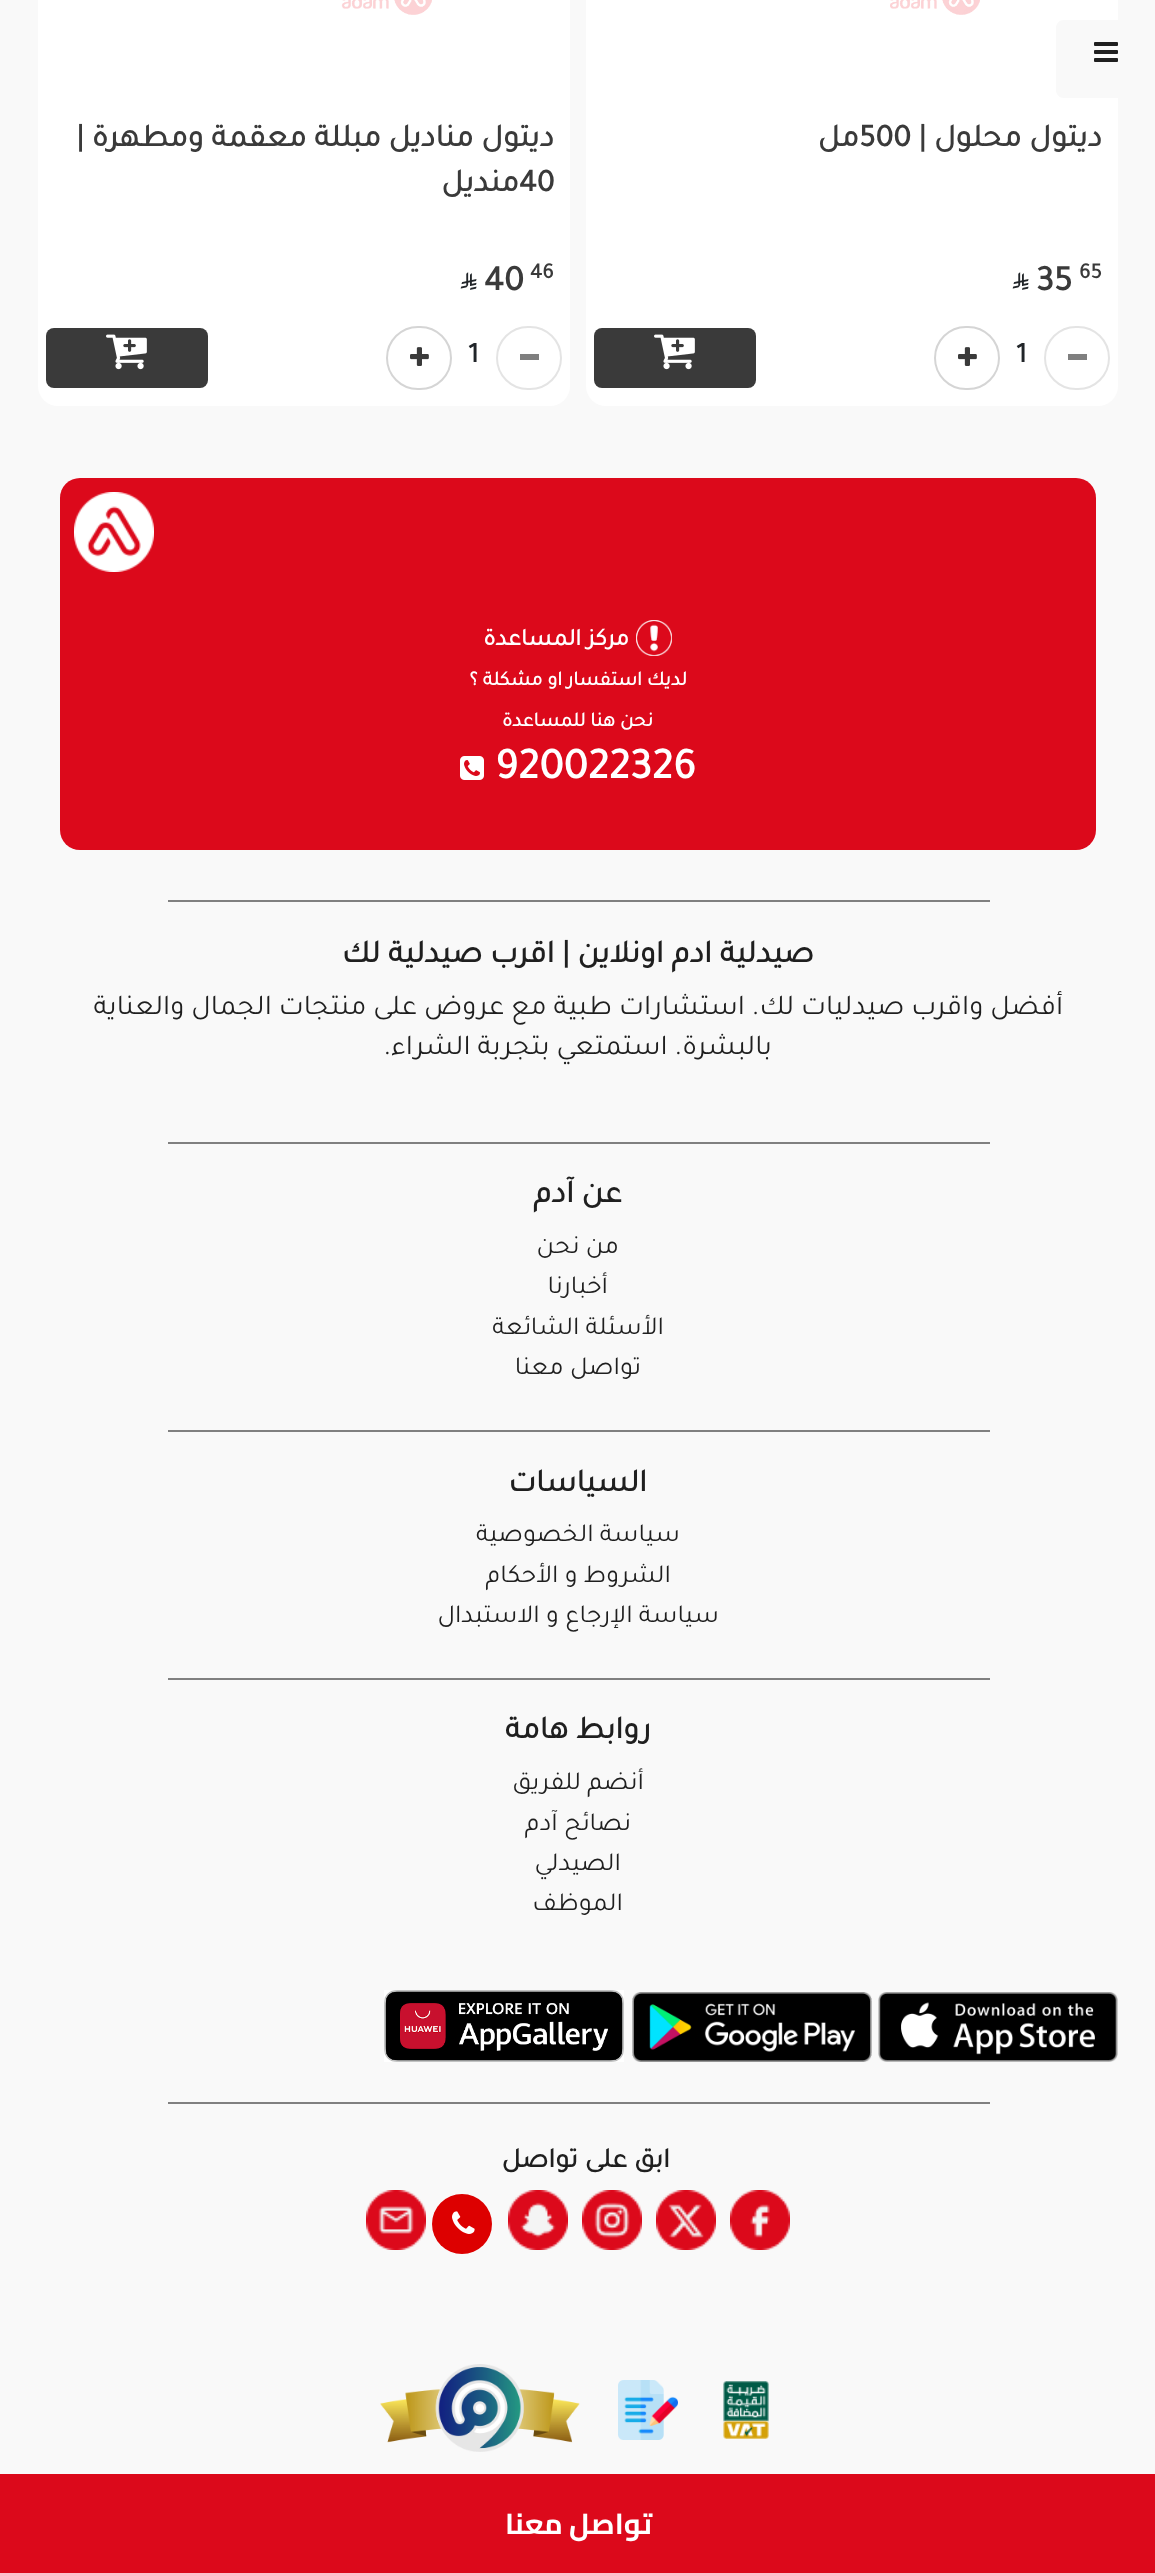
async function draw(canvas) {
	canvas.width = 1155;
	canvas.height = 2573;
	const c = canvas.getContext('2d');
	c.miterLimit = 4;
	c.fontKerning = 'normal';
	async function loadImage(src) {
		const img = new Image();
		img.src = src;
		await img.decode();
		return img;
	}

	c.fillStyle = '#f9f9f9';
	c.fillRect(0, 0, 1155, 2573);
	c.fillStyle = '#fff';
	c.beginPath();
	c.roundRect(586, -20, 532, 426, 20);
	c.fill();
	c.fillStyle = '#f9f9f9';
	c.beginPath();
	c.moveTo(1064, 20);
	c.lineTo(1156, 20);
	c.lineTo(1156, 98);
	c.lineTo(1064, 98);
	c.bezierCurveTo(1059.5, 98, 1056, 94.5, 1056, 90);
	c.lineTo(1056, 28);
	c.bezierCurveTo(1056, 23.5, 1059.5, 20, 1064, 20);
	c.closePath();
	c.fill();
	c.drawImage(await loadImage('img1.png'), 1094, 42, 24, 20);
	c.drawImage(await loadImage('img2.png'), 890, 0, 90, 15);
	c.direction = 'rtl';
	c.font = 'bold 32px Tajawal';
	c.fillStyle = '#3a3a3a';
	c.fillText('ديتول محلول |', 1102, 146);
	c.direction = 'ltr';
	c.fillText('500', 859, 146);
	c.direction = 'rtl';
	c.fillText('مل', 859, 146);
	c.direction = 'ltr';
	c.font = 'bold 22px Tajawal';
	c.fillText('65', 1079, 278);
	c.font = 'bold 36px Tajawal';
	c.fillText('35', 1036, 290);
	c.drawImage(await loadImage('img3.png'), 1012, 272, 17, 18);
	c.beginPath();
	c.roundRect(1045, 327, 64, 62, 31);
	c.strokeStyle = '#e4e4e4';
	c.lineWidth = 2;
	c.stroke();
	c.fillStyle = '#7f7f7f';
	c.fillRect(1068, 354, 19, 6);
	c.font = 'bold 28.8px Tajawal';
	c.fillStyle = '#212529';
	c.fillText('1', 1016, 362);
	c.beginPath();
	c.roundRect(935, 327, 64, 62, 31);
	c.strokeStyle = '#d5d5d5';
	c.stroke();
	c.drawImage(await loadImage('img4.png'), 958, 347, 19, 19);
	c.fillStyle = '#3a3a3a';
	c.beginPath();
	c.roundRect(594, 328, 162, 60, 8);
	c.fill();
	c.drawImage(await loadImage('img5.png'), 654, 334, 41, 36);
	c.fillStyle = '#fff';
	c.beginPath();
	c.roundRect(38, -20, 532, 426, 20);
	c.fill();
	c.drawImage(await loadImage('img6.png'), 341, 0, 91, 15);
	c.direction = 'rtl';
	c.font = 'bold 32px Tajawal';
	c.fillStyle = '#3a3a3a';
	c.fillText('ديتول مناديل مبللة معقمة ومطهرة |', 554, 146);
	c.direction = 'ltr';
	c.fillText('40', 519, 191);
	c.direction = 'rtl';
	c.fillText('منديل', 519, 191);
	c.direction = 'ltr';
	c.font = 'bold 22px Tajawal';
	c.fillText('46', 530, 278);
	c.font = 'bold 36px Tajawal';
	c.fillText('40', 484, 290);
	c.drawImage(await loadImage('img3.png'), 460, 272, 17, 18);
	c.beginPath();
	c.roundRect(497, 327, 64, 62, 31);
	c.strokeStyle = '#e4e4e4';
	c.stroke();
	c.fillStyle = '#7f7f7f';
	c.fillRect(520, 354, 19, 6);
	c.font = 'bold 28.8px Tajawal';
	c.fillStyle = '#212529';
	c.fillText('1', 468, 362);
	c.beginPath();
	c.roundRect(387, 327, 64, 62, 31);
	c.strokeStyle = '#d5d5d5';
	c.stroke();
	c.drawImage(await loadImage('img4.png'), 410, 347, 19, 19);
	c.fillStyle = '#3a3a3a';
	c.beginPath();
	c.roundRect(46, 328, 162, 60, 8);
	c.fill();
	c.drawImage(await loadImage('img5.png'), 106, 334, 41, 36);
	c.fillStyle = '#e0e0e0';
	c.fillRect(60, 494, 1036, 2);
	c.fillStyle = '#dc091b';
	c.beginPath();
	c.roundRect(60, 478, 1036, 372, 20);
	c.fill();
	c.drawImage(await loadImage('img7.png'), 74, 492, 80, 80);
	c.drawImage(await loadImage('img8.png'), 636, 620, 36, 36);
	c.direction = 'rtl';
	c.font = 'bold 24px Tajawal';
	c.fillStyle = '#fff';
	c.fillText('مركز المساعدة', 629, 645);
	c.font = 'bold 20px Tajawal';
	c.fillText('لديك استفسار او مشكلة ؟', 687, 685);
	c.fillText('نحن هنا للمساعدة', 653, 726);
	c.direction = 'ltr';
	c.font = 'bold 44px Tajawal';
	c.fillText('920022326', 495, 778);
	c.drawImage(await loadImage('img9.png'), 460, 756, 24, 24);
	c.fillStyle = '#808080';
	c.fillRect(168, 900, 822, 2);
	c.direction = 'rtl';
	c.font = 'bold 32px Tajawal';
	c.fillStyle = '#1f1f1f';
	c.fillText('صيدلية ادم اونلاين | اقرب صيدلية لك', 814, 962);
	c.font = '28.8px Tajawal';
	c.fillText('أفضل واقرب صيدليات لك. استشارات طبية مع عروض على منتجات الجمال والعناية', 1063, 1014);
	c.fillText('بالبشرة. استمتعي بتجربة الشراء.', 772, 1054);
	c.fillStyle = '#808080';
	c.fillRect(168, 1142, 822, 2);
	c.font = 'bold 32px Tajawal';
	c.fillStyle = '#1f1f1f';
	c.fillText('عن آدم', 622, 1202);
	c.font = '26px Tajawal';
	for (const [text, x, y] of [
		['من نحن', 619, 1253],
		['أخبارنا', 608, 1293],
		['الأسئلة الشائعة', 664, 1334],
		['تواصل معنا', 641, 1374],
	]) {
		c.fillText(text, x, y);
	}
	c.fillStyle = '#808080';
	c.fillRect(168, 1430, 822, 2);
	c.font = 'bold 32px Tajawal';
	c.fillStyle = '#1f1f1f';
	c.fillText('السياسات', 647, 1491);
	c.font = '26px Tajawal';
	for (const [text, x, y] of [
		['سياسة الخصوصية', 680, 1541],
		['الشروط و الأحكام', 671, 1582],
		['سياسة الإرجاع و الاستبدال', 719, 1622],
	]) {
		c.fillText(text, x, y);
	}
	c.fillStyle = '#808080';
	c.fillRect(168, 1678, 822, 2);
	c.font = 'bold 32px Tajawal';
	c.fillStyle = '#1f1f1f';
	c.fillText('روابط هامة', 651, 1738);
	c.font = '26px Tajawal';
	for (const [text, x, y] of [
		['أنضم للفريق', 644, 1789],
		['نصائح آدم', 631, 1830],
		['الصيدلي', 621, 1870],
		['الموظف', 623, 1910],
	]) {
		c.fillText(text, x, y);
	}
	c.drawImage(await loadImage('img10.png'), 878, 1992, 240, 70);
	c.drawImage(await loadImage('img11.png'), 632, 1992, 240, 70);
	c.drawImage(await loadImage('img12.png'), 384, 1990, 240, 72);
	c.fillStyle = '#808080';
	c.fillRect(168, 2102, 822, 2);
	c.font = 'bold 28px Tajawal';
	c.fillStyle = '#1f1f1f';
	c.fillText('ابق على تواصل', 670, 2167);
	c.drawImage(await loadImage('img13.png'), 730, 2190, 60, 60);
	c.drawImage(await loadImage('img14.png'), 656, 2190, 60, 60);
	c.drawImage(await loadImage('img15.png'), 582, 2190, 60, 60);
	c.drawImage(await loadImage('img16.png'), 508, 2190, 60, 60);
	c.fillStyle = '#d00';
	c.beginPath();
	c.arc(462, 2224, 30, 0, 2 * Math.PI);
	c.fill();
	c.drawImage(await loadImage('img17.png'), 452, 2211, 23, 23);
	c.drawImage(await loadImage('img18.png'), 366, 2190, 60, 60);
	c.drawImage(await loadImage('img19.png'), 723, 2381, 46, 58);
	c.drawImage(await loadImage('img20.png'), 618, 2380, 60, 60);
	c.drawImage(await loadImage('img21.png'), 380, 2364, 200, 88);
	c.fillStyle = '#dc091b';
	c.fillRect(0, 2474, 1155, 99);
	c.font = 'bold 28.8px Cairo';
	c.fillStyle = '#fff';
	c.fillText('تواصل معنا', 652, 2534);
}

draw(document.querySelector('canvas'));
